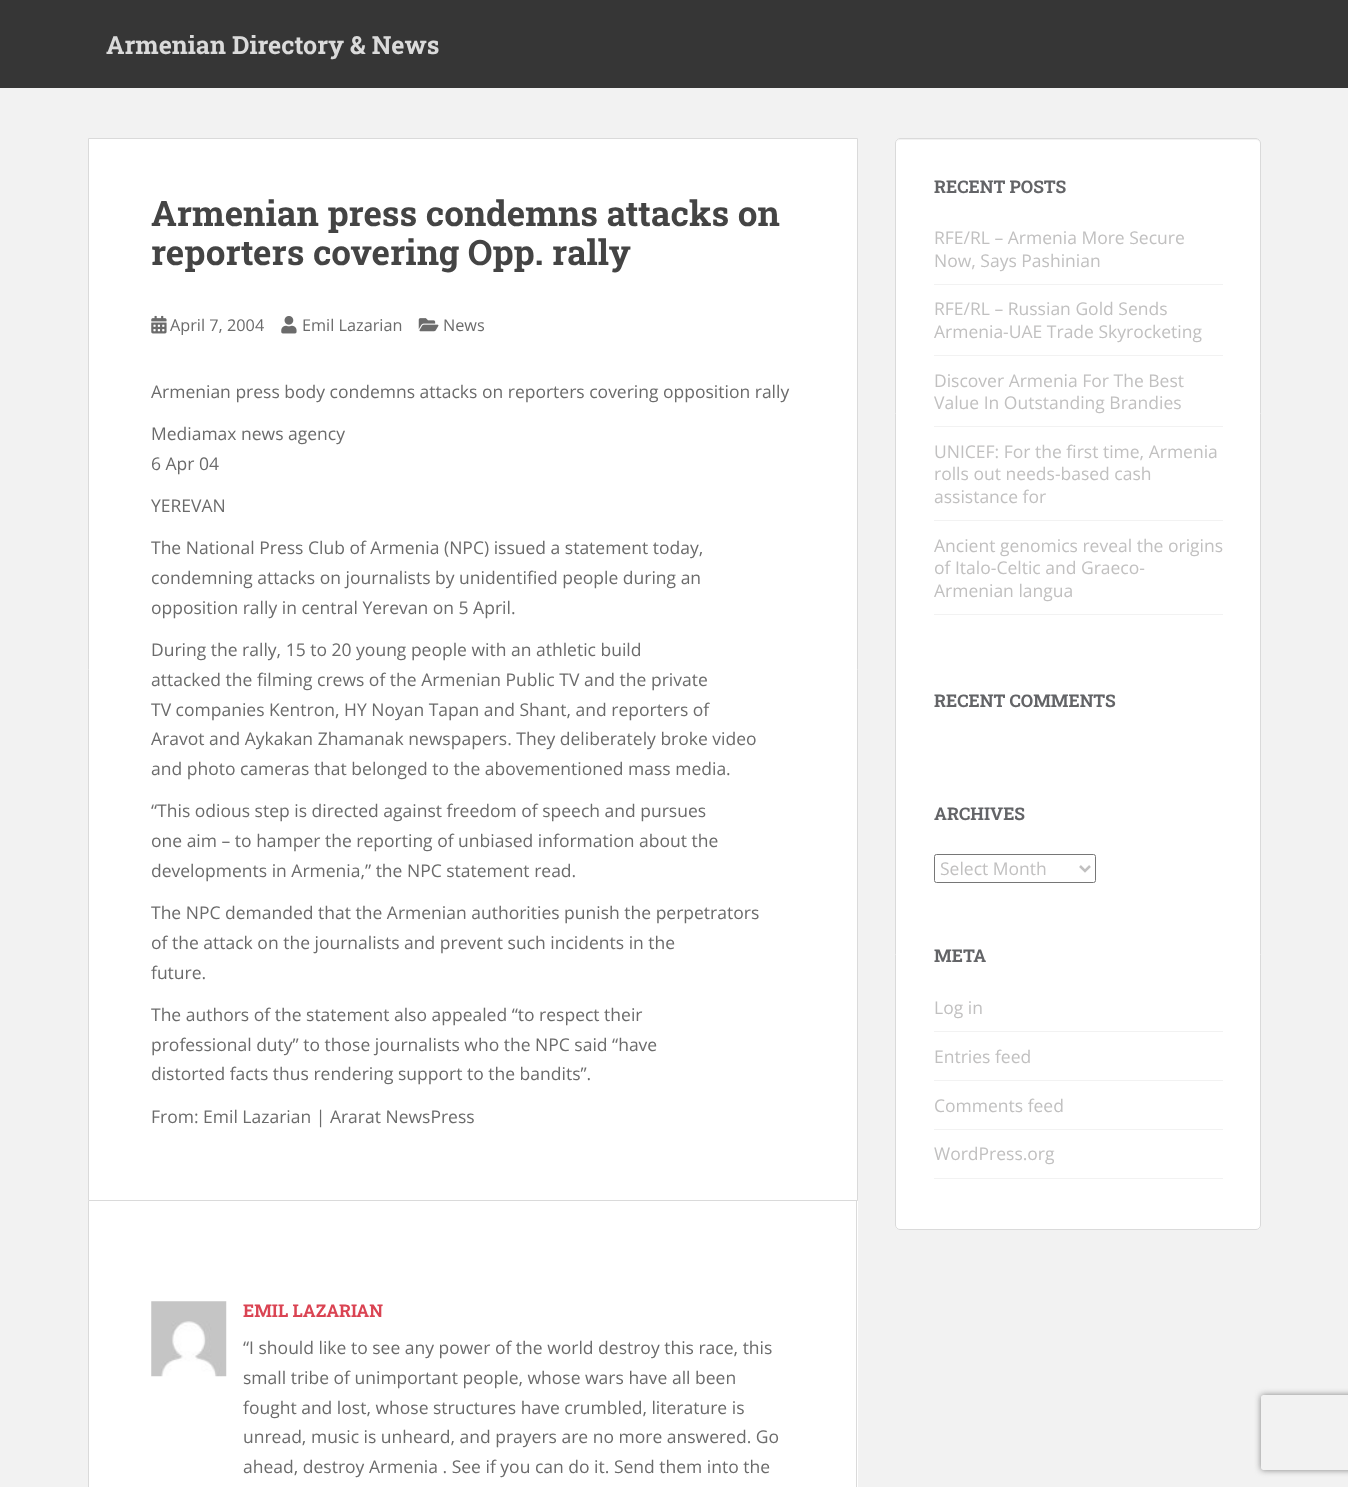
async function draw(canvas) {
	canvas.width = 1348;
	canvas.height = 1487;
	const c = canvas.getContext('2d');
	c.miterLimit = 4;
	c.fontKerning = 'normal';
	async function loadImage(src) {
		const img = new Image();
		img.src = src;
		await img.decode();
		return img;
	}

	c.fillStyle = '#f2f2f2';
	c.fillRect(0, 0, 1348, 1487);
	c.fillStyle = '#363636';
	c.fillRect(0, 0, 1348, 88);
	c.font = 'bold 25px Roboto Slab';
	c.fillStyle = '#dadada';
	c.fillText('Armenian Directory & News', 106, 54);
	c.fillStyle = '#fff';
	c.beginPath();
	c.rect(88.5, 138.5, 769, 1062);
	c.fill();
	c.strokeStyle = '#dadada';
	c.stroke();
	c.font = 'bold 35px Roboto Slab';
	c.fillStyle = '#444';
	c.fillText('Armenian press condemns attacks on', 151, 226);
	c.fillText('reporters covering Opp. rally', 151, 265);
	c.drawImage(await loadImage('img1.png'), 151, 315, 16, 19);
	c.font = '16.25px Open Sans';
	c.fillStyle = '#6b6b6b';
	c.fillText('April 7, 2004', 170, 331);
	c.drawImage(await loadImage('img2.png'), 281, 316, 16, 18);
	c.fillText('Emil Lazarian', 302, 331);
	c.drawImage(await loadImage('img3.png'), 418, 318, 21, 14);
	c.fillText('News', 443, 331);
	c.font = '17.5px Open Sans';
	for (const [text, x, y] of [
		['Armenian press body condemns attacks on reporters covering opposition rally', 151, 398],
		['Mediamax news agency', 151, 440],
		['6 Apr 04', 151, 470],
		['YEREVAN', 151, 512],
		['The National Press Club of Armenia (NPC) issued a statement today,', 151, 554],
		['condemning attacks on journalists by unidentified people during an', 151, 584],
		['opposition rally in central Yerevan on 5 April.', 151, 614],
		['During the rally, 15 to 20 young people with an athletic build', 151, 656],
		['attacked the filming crews of the Armenian Public TV and the private', 151, 686],
		['TV companies Kentron, HY Noyan Tapan and Shant, and reporters of', 151, 716],
		['Aravot and Aykakan Zhamanak newspapers. They deliberately broke video', 151, 745],
		['and photo cameras that belonged to the abovementioned mass media.', 151, 775],
		['“This odious step is directed against freedom of speech and pursues', 151, 817],
		['one aim – to hamper the reporting of unbiased information about the', 151, 847],
		['developments in Armenia,” the NPC statement read.', 151, 877],
		['The NPC demanded that the Armenian authorities punish the perpetrators', 151, 919],
		['of the attack on the journalists and prevent such incidents in the', 151, 949],
		['future.', 151, 979],
		['The authors of the statement also appealed “to respect their', 151, 1021],
		['professional duty” to those journalists who the NPC said “have', 151, 1051],
		['distorted facts thus rendering support to the bandits”.', 151, 1080],
		['From: Emil Lazarian | Ararat NewsPress', 151, 1123],
	]) {
		c.fillText(text, x, y);
	}
	for (const [x, y, w, h, color] of [
		[89, 1201, 769, 286, '#fff'],
		[856, 1201, 1, 286, '#dadada'],
		[88, 1201, 1, 286, '#dadada'],
	]) {
		c.fillStyle = color;
		c.fillRect(x, y, w, h);
	}
	c.drawImage(await loadImage('img4.png'), 151, 1301, 76, 76);
	c.font = 'bold 17.5px Roboto Slab';
	c.fillStyle = '#da4453';
	c.fillText('EMIL LAZARIAN', 243, 1317);
	c.font = '17.5px Open Sans';
	c.fillStyle = '#6b6b6b';
	for (const [text, x, y] of [
		['“I should like to see any power of the world destroy this race, this', 243, 1354],
		['small tribe of unimportant people, whose wars have all been', 243, 1384],
		['fought and lost, whose structures have crumbled, literature is', 243, 1414],
		['unread, music is unheard, and prayers are no more answered. Go', 243, 1443],
		['ahead, destroy Armenia . See if you can do it. Send them into the', 243, 1473],
	]) {
		c.fillText(text, x, y);
	}
	c.fillStyle = '#fff';
	c.beginPath();
	c.roundRect(895, 138, 366, 1092, 5);
	c.fill();
	c.fillStyle = '#f2f2f2';
	c.beginPath();
	c.moveTo(900, 140);
	c.lineTo(1256, 140);
	c.bezierCurveTo(1258, 140, 1260, 142, 1260, 144);
	c.bezierCurveTo(1260, 141, 1259, 139, 1256, 139);
	c.lineTo(899, 139);
	c.lineTo(897, 141);
	c.lineTo(896, 144);
	c.bezierCurveTo(896, 142, 898, 140, 900, 140);
	c.closePath();
	c.fill();
	c.beginPath();
	c.roundRect(895.5, 138.5, 365, 1091, 4.5);
	c.stroke();
	c.font = 'bold 17.5px Roboto Slab';
	c.fillStyle = '#636467';
	c.fillText('RECENT POSTS', 934, 193);
	c.fillStyle = '#f2f2f2';
	c.fillRect(934, 284, 289, 1);
	c.font = '17.5px Open Sans';
	c.fillStyle = '#c1c0c0';
	c.fillText('RFE/RL – Armenia More Secure', 934, 244);
	c.fillText('Now, Says Pashinian', 934, 267);
	c.fillStyle = '#f2f2f2';
	c.fillRect(934, 355, 289, 1);
	c.fillStyle = '#c1c0c0';
	c.fillText('RFE/RL – Russian Gold Sends', 934, 315);
	c.fillText('Armenia-UAE Trade Skyrocketing', 934, 338);
	c.fillStyle = '#f2f2f2';
	c.fillRect(934, 426, 289, 1);
	c.fillStyle = '#c1c0c0';
	c.fillText('Discover Armenia For The Best', 934, 387);
	c.fillText('Value In Outstanding Brandies', 934, 409);
	c.fillStyle = '#f2f2f2';
	c.fillRect(934, 520, 289, 1);
	c.fillStyle = '#c1c0c0';
	for (const [text, x, y] of [
		['UNICEF: For the first time, Armenia', 934, 458],
		['rolls out needs-based cash', 934, 480],
		['assistance for', 934, 503],
	]) {
		c.fillText(text, x, y);
	}
	c.fillStyle = '#f2f2f2';
	c.fillRect(934, 614, 289, 1);
	c.fillStyle = '#c1c0c0';
	for (const [text, x, y] of [
		['Ancient genomics reveal the origins', 934, 552],
		['of Italo-Celtic and Graeco-', 934, 574],
		['Armenian langua', 934, 597],
	]) {
		c.fillText(text, x, y);
	}
	c.font = 'bold 17.5px Roboto Slab';
	c.fillStyle = '#636467';
	c.fillText('RECENT COMMENTS', 934, 707);
	c.fillText('ARCHIVES', 934, 820);
	c.beginPath();
	c.roundRect(934.5, 854.5, 161, 28, 2);
	c.strokeStyle = '#767676';
	c.stroke();
	c.beginPath();
	c.moveTo(1080, 866);
	c.lineTo(1085, 871);
	c.lineTo(1090, 866);
	c.strokeStyle = '#c1c0c0';
	c.lineWidth = 2.5;
	c.stroke();
	c.font = '17.5px Open Sans';
	c.fillStyle = '#c1c0c0';
	c.fillText('Select Month', 940, 875);
	c.font = 'bold 17.5px Roboto Slab';
	c.fillStyle = '#636467';
	c.fillText('META', 934, 962);
	c.fillStyle = '#f2f2f2';
	c.fillRect(934, 1031, 289, 1);
	c.font = '17.5px Open Sans';
	c.fillStyle = '#c1c0c0';
	c.fillText('Log in', 934, 1014);
	c.fillStyle = '#f2f2f2';
	c.fillRect(934, 1080, 289, 1);
	c.fillStyle = '#c1c0c0';
	c.fillText('Entries feed', 934, 1063);
	c.fillStyle = '#f2f2f2';
	c.fillRect(934, 1129, 289, 1);
	c.fillStyle = '#c1c0c0';
	c.fillText('Comments feed', 934, 1112);
	c.fillStyle = '#f2f2f2';
	c.fillRect(934, 1178, 289, 1);
	c.fillStyle = '#c1c0c0';
	c.fillText('WordPress.org', 934, 1160);
	c.save();
	c.beginPath();
	c.moveTo(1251, 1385);
	c.lineTo(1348, 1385);
	c.lineTo(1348, 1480);
	c.lineTo(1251, 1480);
	c.closePath();
	c.moveTo(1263.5, 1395);
	c.lineTo(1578.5, 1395);
	c.bezierCurveTo(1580, 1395, 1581, 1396, 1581, 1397.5);
	c.lineTo(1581, 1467.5);
	c.bezierCurveTo(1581, 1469, 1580, 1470, 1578.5, 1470);
	c.lineTo(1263.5, 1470);
	c.bezierCurveTo(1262, 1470, 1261, 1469, 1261, 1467.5);
	c.lineTo(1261, 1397.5);
	c.bezierCurveTo(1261, 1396, 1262, 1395, 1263.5, 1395);
	c.closePath();
	c.clip('evenodd');
	c.fillStyle = '#808080';
	c.filter = 'blur(3px)';
	c.beginPath();
	c.roundRect(1261, 1395, 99, 75, 2.5);
	c.fill();
	c.filter = 'none';
	c.restore();
}

draw(document.querySelector('canvas'));
